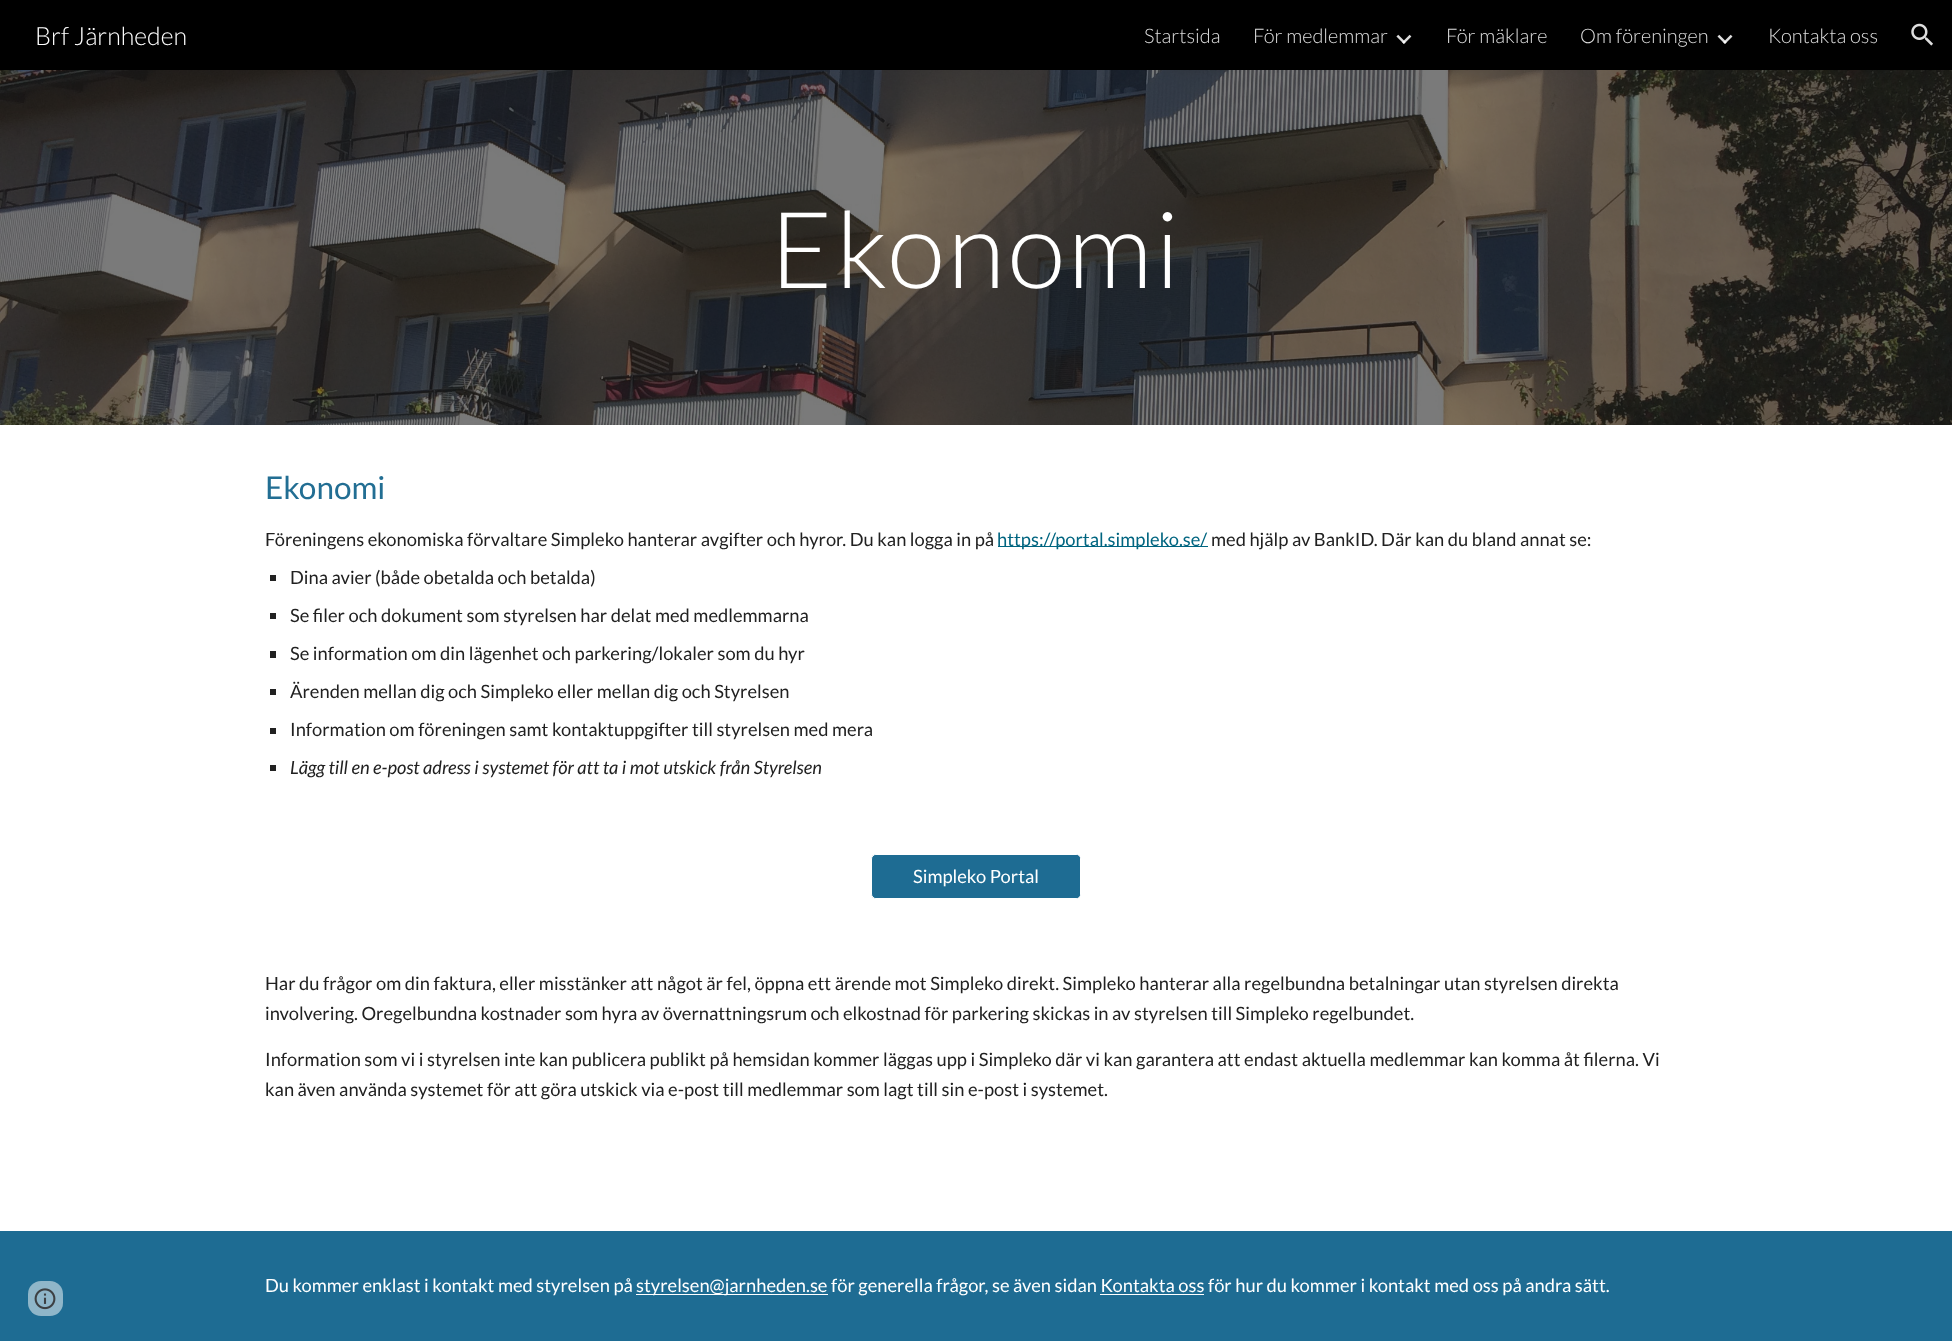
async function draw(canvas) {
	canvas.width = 1952;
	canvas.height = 1341;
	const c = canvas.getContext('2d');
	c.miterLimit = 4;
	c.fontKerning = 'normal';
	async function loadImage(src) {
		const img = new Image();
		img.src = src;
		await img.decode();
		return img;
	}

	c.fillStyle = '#fff';
	c.fillRect(0, 0, 1952, 1341);
	c.fillStyle = '#000';
	c.fillRect(0, 0, 1952, 70);
	c.font = '300 25px Lato';
	c.fillStyle = '#fff';
	c.fillText('Brf Järnheden', 35, 45);
	c.font = '300 20px Lato';
	c.fillStyle = '#dedede';
	c.fillText('Startsida', 1144, 43);
	c.fillText('För medlemmar', 1253, 43);
	c.drawImage(await loadImage('img1.png'), 1396, 34, 16, 10);
	c.fillText('För mäklare', 1446, 43);
	c.fillText('Om föreningen', 1580, 43);
	c.drawImage(await loadImage('img2.png'), 1717, 34, 16, 10);
	c.fillText('Kontakta oss', 1768, 43);
	c.drawImage(await loadImage('img3.png'), 1911, 23, 22, 23);
	c.drawImage(await loadImage('img4.png'), 0, 70, 1952, 355);
	c.letterSpacing = '2.5px';
	c.font = '300 106.5px Lato';
	c.fillStyle = '#fff';
	c.fillText('Ekonomi', 770, 288);
	c.letterSpacing = '0px';
	c.font = '31.5px Lato';
	c.fillStyle = '#226e93';
	c.fillText('Ekonomi', 265, 499);
	c.font = '18.33px Lato';
	c.fillStyle = '#212121';
	c.fillText('Föreningens ekonomiska förvaltare Simpleko hanterar avgifter och hyror. Du kan logga in på', 265, 546);
	c.fillStyle = '#006580';
	c.fillRect(998, 546, 210, 1);
	c.fillText('https://portal.simpleko.se/', 997, 546);
	c.fillStyle = '#212121';
	c.fillText('med hjälp av BankID. Där kan du bland annat se:', 1211, 546);
	c.fillRect(270, 575, 6, 6);
	c.fillText('Dina avier (både obetalda och betalda)', 290, 584);
	c.fillRect(270, 613, 6, 6);
	c.fillText('Se filer och dokument som styrelsen har delat med medlemmarna', 290, 622);
	c.fillRect(270, 651, 6, 7);
	c.fillText('Se information om din lägenhet och parkering/lokaler som du hyr', 290, 660);
	c.fillRect(270, 689, 6, 6);
	c.fillText('Ärenden mellan dig och Simpleko eller mellan dig och Styrelsen', 290, 698);
	c.fillRect(270, 728, 6, 6);
	c.fillText('Information om föreningen samt kontaktuppgifter till styrelsen med mera', 290, 736);
	c.fillRect(270, 765, 6, 6);
	c.font = 'italic 18.33px Lato';
	c.fillText('Lägg till en e-post adress i systemet för att ta i mot utskick från Styrelsen', 290, 774);
	c.fillStyle = '#1e6c93';
	c.beginPath();
	c.roundRect(871.5, 854.5, 209, 44, 4.5);
	c.fill();
	c.strokeStyle = '#fff';
	c.stroke();
	c.beginPath();
	c.roundRect(873, 855, 207, 43, 4);
	c.fill();
	c.font = '18.33px Lato';
	c.fillStyle = '#fff';
	c.fillText('Simpleko Portal', 913, 883);
	c.fillStyle = '#212121';
	for (const [text, x, y] of [
		['Har du frågor om din faktura, eller misstänker att något är fel, öppna ett ärende mot Simpleko direkt. Simpleko hanterar alla regelbundna betalningar utan styrelsen direkta', 265, 990],
		['involvering. Oregelbundna kostnader som hyra av övernattningsrum och elkostnad för parkering skickas in av styrelsen till Simpleko regelbundet.', 265, 1020],
		['Information som vi i styrelsen inte kan publicera publikt på hemsidan kommer läggas upp i Simpleko där vi kan garantera att endast aktuella medlemmar kan komma åt filerna. Vi', 265, 1066],
		['kan även använda systemet för att göra utskick via e-post till medlemmar som lagt till sin e-post i systemet.', 265, 1096],
	]) {
		c.fillText(text, x, y);
	}
	c.fillStyle = '#1e6c93';
	c.fillRect(0, 1231, 1952, 110);
	c.fillStyle = '#8fb6c9';
	c.beginPath();
	c.roundRect(28, 1281, 35, 35, 13);
	c.fill();
	c.drawImage(await loadImage('img5.png'), 34, 1288, 22, 22);
	c.fillStyle = '#fff';
	c.fillText('Du kommer enklast i kontakt med styrelsen på', 265, 1292);
	c.fillRect(636, 1294, 192, 1);
	c.fillText('styrelsen@jarnheden.se för generella frågor, se även sidan Kontakta oss för hur du kommer i kontakt med oss på andra sätt.', 636, 1292);
	c.fillRect(1100, 1294, 104, 1);
}

draw(document.querySelector('canvas'));
